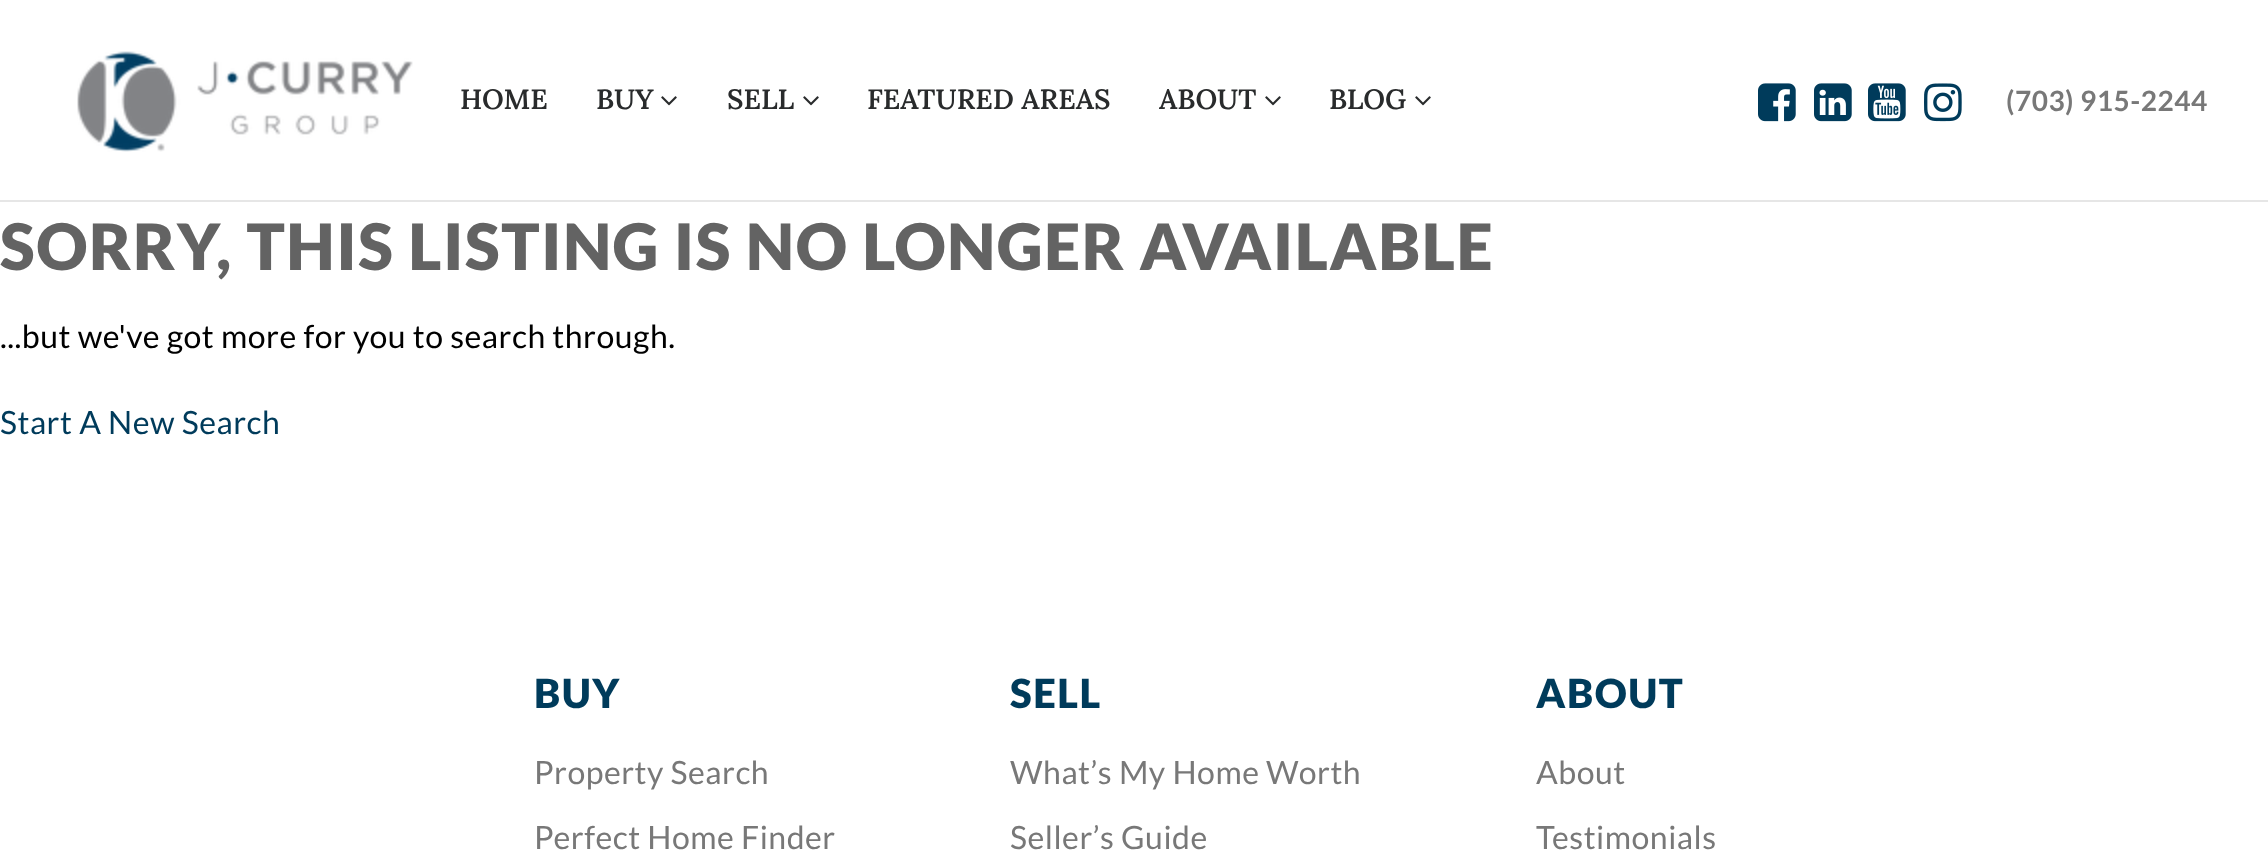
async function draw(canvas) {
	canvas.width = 2268;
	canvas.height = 857;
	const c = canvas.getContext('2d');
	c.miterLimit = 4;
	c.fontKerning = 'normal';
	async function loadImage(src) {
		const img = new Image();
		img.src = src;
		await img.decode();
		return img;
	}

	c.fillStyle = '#fff';
	c.fillRect(0, 0, 2268, 857);
	c.fillStyle = '#e6e6e6';
	c.fillRect(0, 200, 2268, 2);
	c.drawImage(await loadImage('img1.png'), 77, 51, 336, 101);
	c.font = '600 28px Lora';
	c.fillStyle = '#292b2c';
	c.fillText('HOME', 460, 109);
	c.fillText('BUY', 596, 109);
	c.drawImage(await loadImage('img2.png'), 661, 96, 16, 10);
	c.fillText('SELL', 727, 109);
	c.drawImage(await loadImage('img2.png'), 803, 96, 16, 10);
	c.fillText('FEATURED AREAS', 867, 109);
	c.fillText('ABOUT', 1159, 109);
	c.drawImage(await loadImage('img2.png'), 1265, 96, 16, 10);
	c.fillText('BLOG', 1329, 109);
	c.drawImage(await loadImage('img2.png'), 1415, 96, 16, 10);
	c.drawImage(await loadImage('img3.png'), 1758, 83, 38, 39);
	c.drawImage(await loadImage('img4.png'), 1814, 83, 38, 39);
	c.drawImage(await loadImage('img5.png'), 1868, 83, 38, 39);
	c.drawImage(await loadImage('img6.png'), 1924, 83, 38, 39);
	c.letterSpacing = '0.5px';
	c.font = 'bold 28px Lato';
	c.fillStyle = '#787878';
	c.fillText('(703) 915-2244', 2006, 111);
	c.letterSpacing = '1.5px';
	c.font = '900 64px Lato';
	c.fillStyle = '#636363';
	c.fillText('SORRY, THIS LISTING IS NO LONGER AVAILABLE', 0, 270);
	c.letterSpacing = '0.5px';
	c.font = '32px Lato';
	c.fillStyle = '#000';
	c.fillText('...but we\'ve got more for you to search through.', 0, 348);
	c.fillStyle = '#003b5b';
	c.fillText('Start A New Search', 0, 434);
	c.letterSpacing = '1.5px';
	c.font = '900 40px Lato';
	c.fillText('BUY', 534, 708);
	c.letterSpacing = '0.5px';
	c.font = '32px Lato';
	c.fillStyle = '#787878';
	c.fillText('Property Search', 534, 784);
	c.fillText('Perfect Home Finder', 534, 849);
	c.letterSpacing = '1.5px';
	c.font = '900 40px Lato';
	c.fillStyle = '#003b5b';
	c.fillText('SELL', 1010, 708);
	c.letterSpacing = '0.5px';
	c.font = '32px Lato';
	c.fillStyle = '#787878';
	c.fillText('What’s My Home Worth', 1010, 784);
	c.fillText('Seller’s Guide', 1010, 849);
	c.letterSpacing = '1.5px';
	c.font = '900 40px Lato';
	c.fillStyle = '#003b5b';
	c.fillText('ABOUT', 1536, 708);
	c.letterSpacing = '0.5px';
	c.font = '32px Lato';
	c.fillStyle = '#787878';
	c.fillText('About', 1536, 784);
	c.fillText('Testimonials', 1536, 849);
}

draw(document.querySelector('canvas'));
